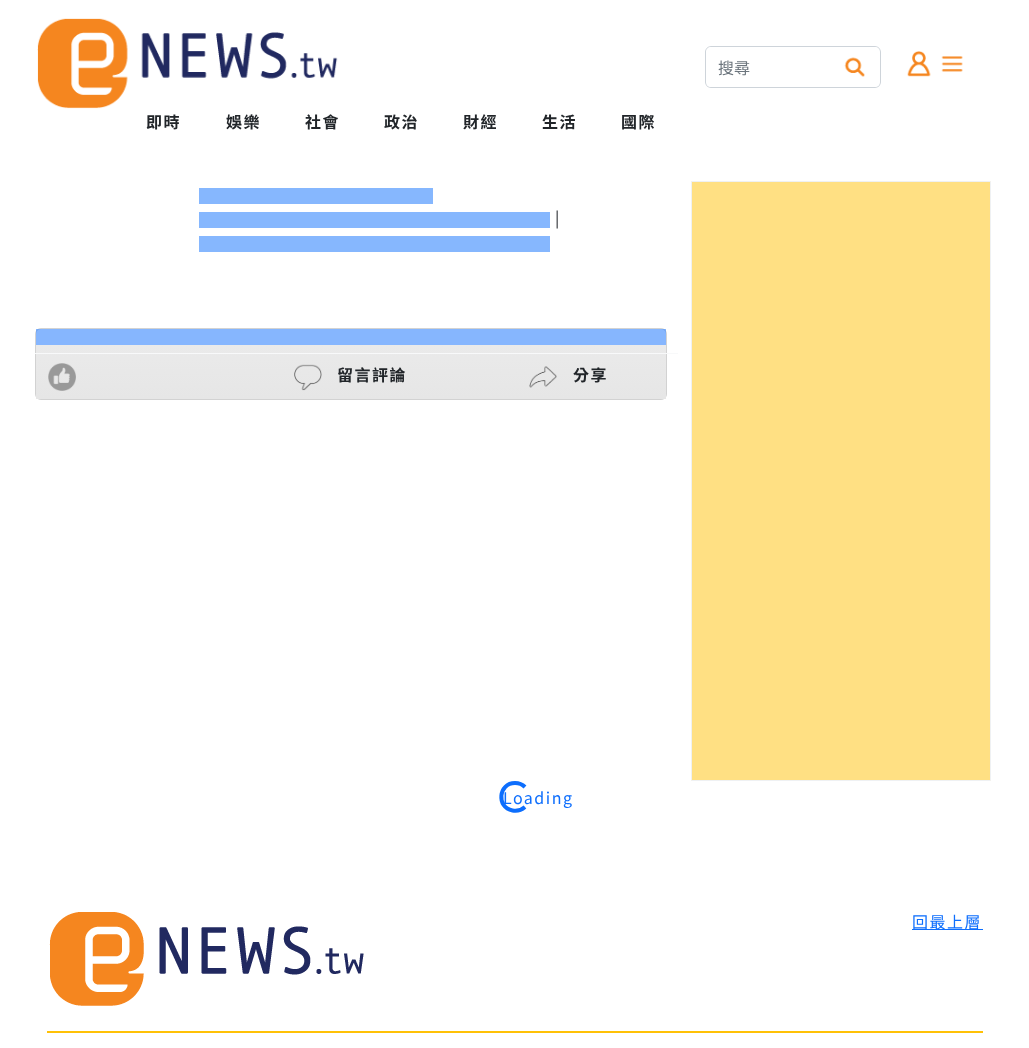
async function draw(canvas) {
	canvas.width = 1029;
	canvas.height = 1048;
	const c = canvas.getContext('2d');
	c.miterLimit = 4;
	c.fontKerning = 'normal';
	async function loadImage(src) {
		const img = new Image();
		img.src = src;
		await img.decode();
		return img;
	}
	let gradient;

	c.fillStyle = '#fff';
	c.fillRect(0, 0, 1029, 1048);
	c.fillStyle = '#ced4da';
	c.beginPath();
	c.moveTo(828, 46);
	c.lineTo(875, 46);
	c.bezierCurveTo(878, 46, 881, 49, 881, 52);
	c.lineTo(881, 82);
	c.bezierCurveTo(881, 85, 878, 88, 875, 88);
	c.lineTo(828, 88);
	c.closePath();
	c.moveTo(828, 47);
	c.lineTo(875, 47);
	c.bezierCurveTo(878, 47, 880, 49, 880, 52);
	c.lineTo(880, 82);
	c.bezierCurveTo(880, 85, 878, 87, 875, 87);
	c.lineTo(828, 87);
	c.closePath();
	c.fill('evenodd');
	c.beginPath();
	c.moveTo(711, 46);
	c.lineTo(829, 46);
	c.lineTo(829, 88);
	c.lineTo(711, 88);
	c.bezierCurveTo(708, 88, 705, 85, 705, 82);
	c.lineTo(705, 52);
	c.bezierCurveTo(705, 49, 708, 46, 711, 46);
	c.closePath();
	c.moveTo(711, 47);
	c.lineTo(829, 47);
	c.lineTo(829, 87);
	c.lineTo(711, 87);
	c.bezierCurveTo(708, 87, 706, 85, 706, 82);
	c.lineTo(706, 52);
	c.bezierCurveTo(706, 49, 708, 47, 711, 47);
	c.closePath();
	c.fill('evenodd');
	c.font = '16px Noto Sans TC';
	c.fillStyle = '#6c757d';
	c.fillText('搜尋', 718, 74);
	c.drawImage(await loadImage('img1.png'), 844, 57, 21, 20);
	c.drawImage(await loadImage('img2.png'), 907, 51, 24, 26);
	c.drawImage(await loadImage('img3.png'), 941, 56, 22, 16);
	c.drawImage(await loadImage('img4.png'), 37, 18, 301, 91);
	c.letterSpacing = '1.5px';
	c.font = 'bold 16px Noto Sans TC';
	c.fillStyle = '#212529';
	for (const [text, x, y] of [
		['即時', 146, 128],
		['娛樂', 226, 128],
		['社會', 305, 128],
		['政治', 384, 128],
		['財經', 463, 128],
		['生活', 542, 128],
		['國際', 621, 128],
	]) {
		c.fillText(text, x, y);
	}
	c.fillStyle = '#86b7fe';
	c.fillRect(199, 188, 234, 16);
	c.fillRect(199, 212, 351, 16);
	c.font = '16px Noto Sans TC';
	c.fillStyle = '#212529';
	c.fillText('|', 555, 224);
	c.fillStyle = '#86b7fe';
	c.fillRect(199, 236, 351, 16);
	c.beginPath();
	c.roundRect(35.5, 328.5, 631, 71, 5.5);
	c.strokeStyle = '#d2d2d2';
	c.stroke();
	c.fillStyle = '#0d6efd80';
	c.fillRect(36, 329, 630, 16);
	gradient = c.createLinearGradient(351, 345, 351, 399);
	gradient.addColorStop(0, '#eaeaea');
	gradient.addColorStop(1, '#e6e6e6');
	c.fillStyle = gradient;
	c.fillRect(36, 345, 630, 54);
	c.fillStyle = '#f8f9fa';
	c.fillRect(35, 353, 643, 1);
	c.drawImage(await loadImage('img5.png'), 48, 363, 28, 28);
	c.drawImage(await loadImage('img6.png'), 294, 364, 28, 27);
	c.font = 'bold 16px Noto Sans TC';
	c.fillStyle = '#212529';
	c.fillText('留言評論', 337, 381);
	c.drawImage(await loadImage('img7.png'), 529, 366, 28, 22);
	c.fillText('分享', 573, 381);
	c.fillStyle = '#ffe083';
	c.beginPath();
	c.rect(691.5, 181.5, 299, 599);
	c.fill();
	c.strokeStyle = '#eff1f3';
	c.stroke();
	c.beginPath();
	c.moveTo(525, 807);
	c.bezierCurveTo(521.5, 810, 517, 811.5, 512.5, 810.5);
	c.bezierCurveTo(496, 807.5, 498.5, 783, 515, 783);
	c.bezierCurveTo(518.5, 783, 522.5, 784.5, 525, 787);
	c.strokeStyle = '#0d6efd';
	c.lineWidth = 4;
	c.stroke();
	c.font = '16px Noto Sans TC';
	c.fillStyle = '#0d6efd';
	c.fillText('Loading', 503, 804);
	c.drawImage(await loadImage('img8.png'), 49, 912, 315, 94);
	c.fillRect(912, 929, 71, 1);
	c.fillText('回最上層', 912, 928);
	c.fillStyle = '#ffc107';
	c.fillRect(47, 1031, 936, 2);
}

draw(document.querySelector('canvas'));
